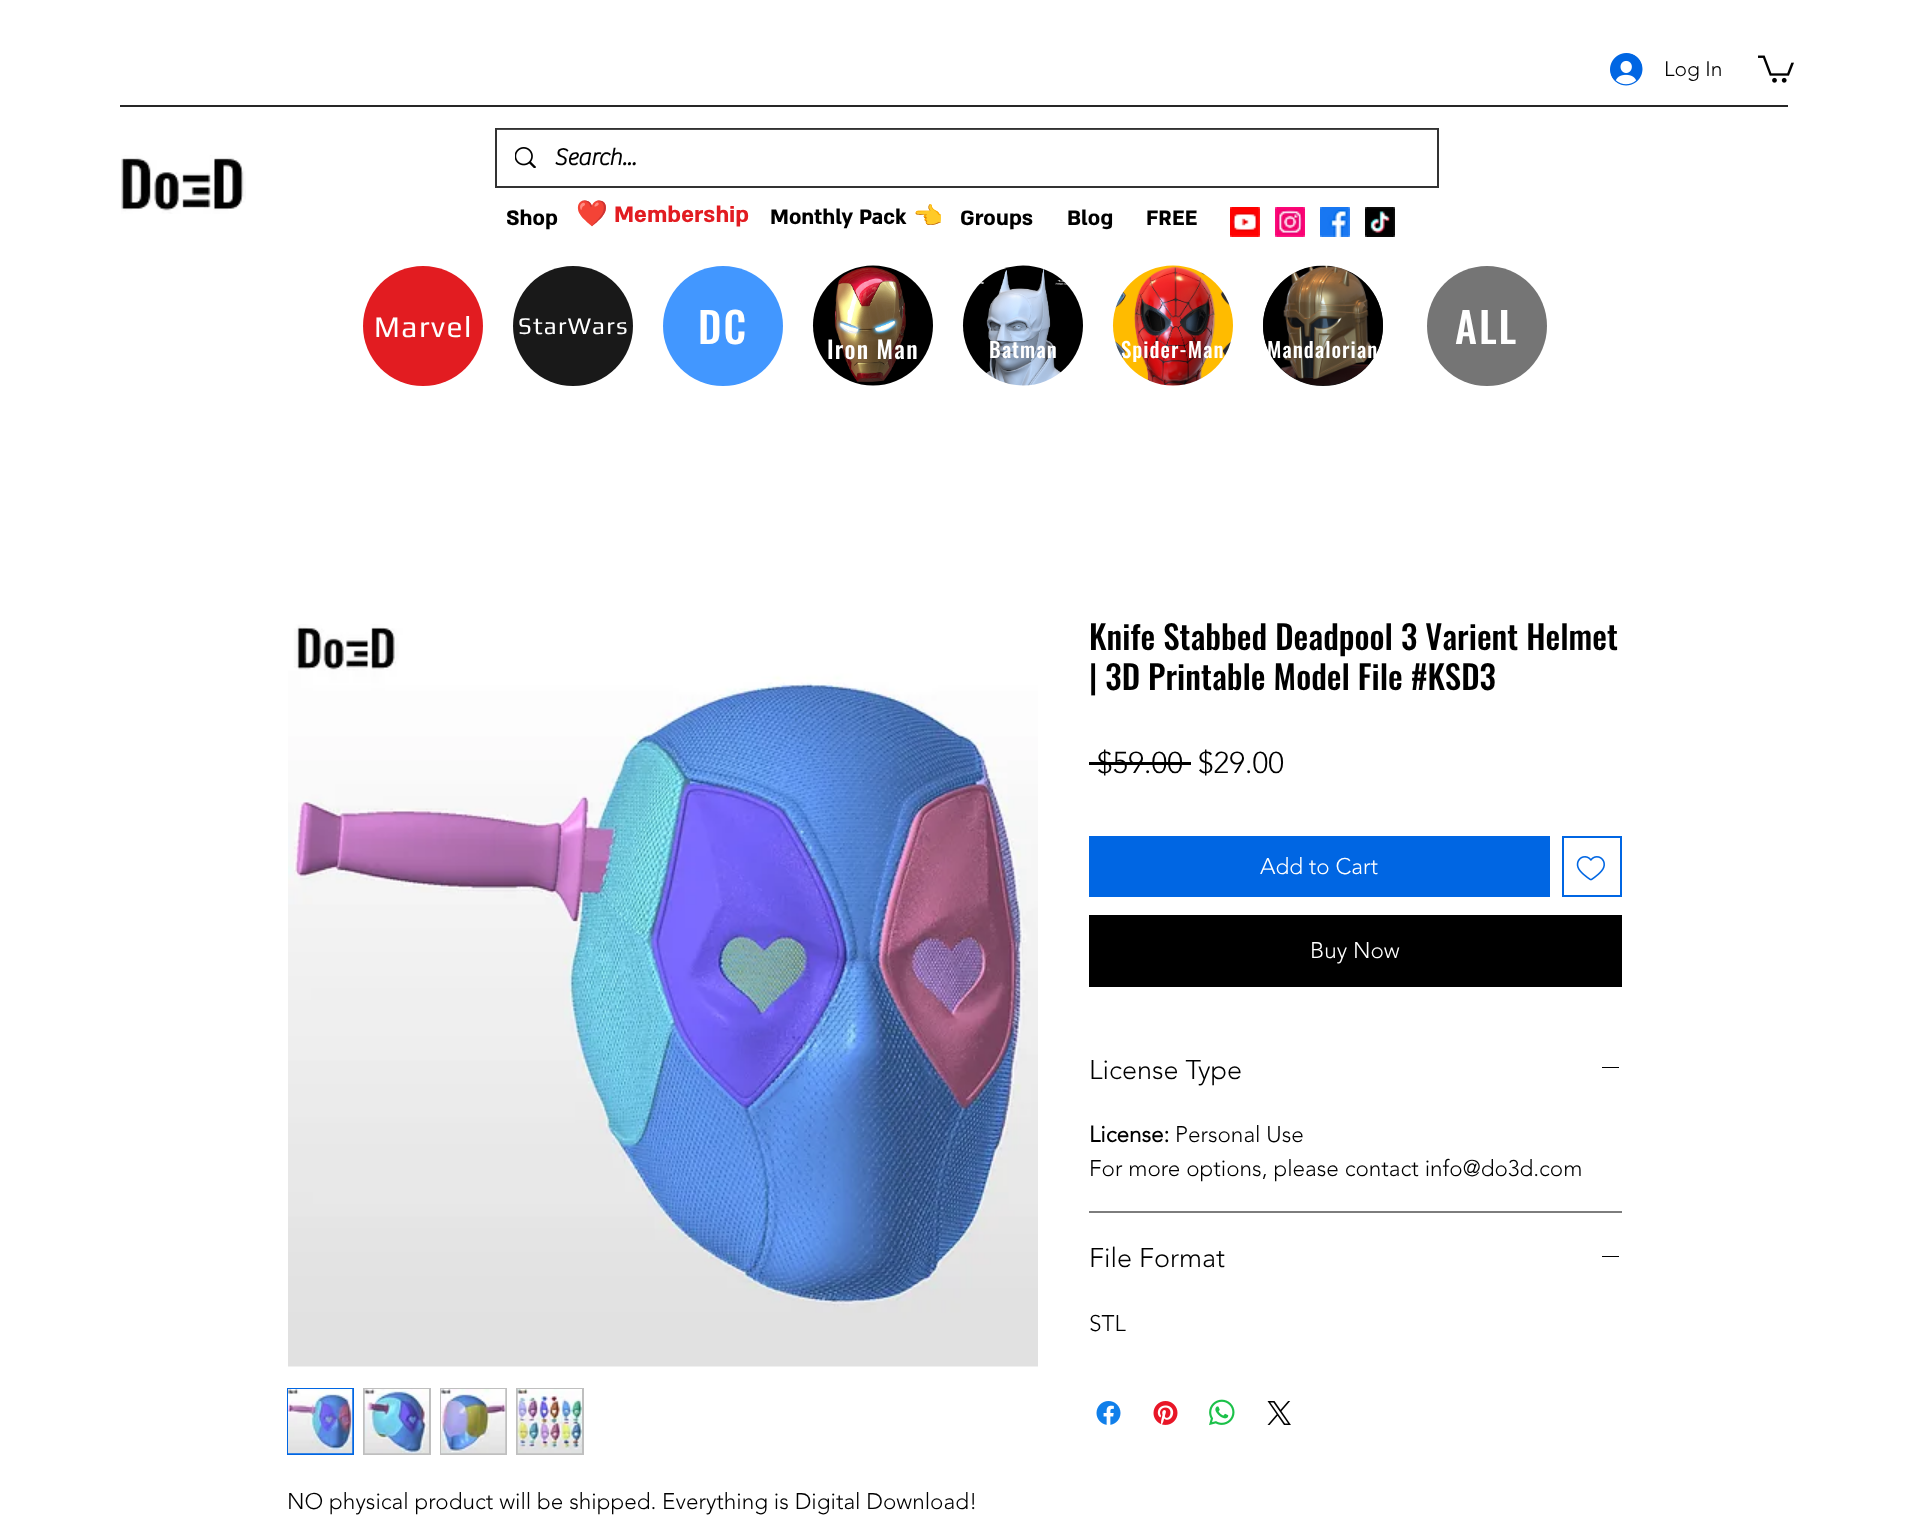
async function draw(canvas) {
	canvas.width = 1907;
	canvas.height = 1537;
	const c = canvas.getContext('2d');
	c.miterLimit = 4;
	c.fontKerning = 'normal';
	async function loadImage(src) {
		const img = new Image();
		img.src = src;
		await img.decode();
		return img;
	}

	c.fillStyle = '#fff';
	c.fillRect(0, 0, 1907, 1537);
	c.drawImage(await loadImage('img1.png'), 1610, 53, 33, 33);
	c.font = '300 21px "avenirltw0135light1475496"';
	c.fillStyle = '#000';
	c.fillText('Log In', 1664, 76);
	c.drawImage(await loadImage('img2.png'), 1758, 55, 36, 28);
	c.fillStyle = '#262626';
	c.fillRect(120, 105, 1668, 2);
	c.drawImage(await loadImage('img3.png'), 121, 155, 125, 59);
	c.strokeStyle = '#323232';
	c.lineWidth = 2;
	c.strokeRect(496, 129, 942, 58);
	c.fillStyle = '#ffffff1f';
	c.fillRect(497, 129, 940, 1);
	c.drawImage(await loadImage('img4.png'), 515, 147, 21, 21);
	c.font = 'bold 24px "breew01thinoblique"';
	c.fillStyle = '#000';
	c.fillText('Search...', 554, 165);
	c.font = 'bold 24px "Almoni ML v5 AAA"';
	c.fillText('Shop', 506, 225);
	c.font = 'bold 25.5px Noto Color Emoji';
	c.fillStyle = '#e21c21';
	c.fillText('❤️', 576, 222);
	c.font = 'bold 25.5px "Almoni ML v5 AAA"';
	c.fillText('Membership', 614, 222);
	c.font = 'bold 24px "Almoni ML v5 AAA"';
	c.fillStyle = '#000';
	c.fillText('Monthly Pack', 770, 224);
	c.font = 'bold 24px Noto Color Emoji';
	c.fillText('👈', 913, 224);
	c.font = 'bold 24px "Almoni ML v5 AAA"';
	for (const [text, x, y] of [
		['Groups', 960, 225],
		['Blog', 1067, 225],
		['FREE', 1146, 225],
	]) {
		c.fillText(text, x, y);
	}
	c.drawImage(await loadImage('img5.png'), 1230, 207, 30, 30);
	c.drawImage(await loadImage('img6.png'), 1275, 207, 30, 30);
	c.drawImage(await loadImage('img7.png'), 1320, 207, 30, 30);
	c.drawImage(await loadImage('img8.png'), 1365, 207, 30, 30);
	c.fillStyle = '#e21c21';
	c.beginPath();
	c.arc(423, 326, 60, 0, 2 * Math.PI);
	c.fill();
	c.letterSpacing = '1.5px';
	c.font = '30px Play';
	c.fillStyle = '#fff';
	c.fillText('Marvel', 374, 337);
	c.fillStyle = '#191919';
	c.beginPath();
	c.arc(573, 326, 60, 0, 2 * Math.PI);
	c.fill();
	c.letterSpacing = '1.25px';
	c.font = '24px Play';
	c.fillStyle = '#fff';
	c.fillText('StarWars', 518, 334);
	c.fillStyle = '#4297ff';
	c.beginPath();
	c.arc(723, 326, 60, 0, 2 * Math.PI);
	c.fill();
	c.letterSpacing = '2px';
	c.font = '500 42px Oswald';
	c.fillStyle = '#fff';
	c.fillText('DC', 698, 344);
	c.fillStyle = '#757575';
	c.beginPath();
	c.arc(1487, 326, 60, 0, 2 * Math.PI);
	c.fill();
	c.fillStyle = '#fff';
	c.fillText('ALL', 1455, 344);
	c.drawImage(await loadImage('img9.png'), 812, 265, 121, 121);
	c.letterSpacing = '1.25px';
	c.font = '500 24px Oswald';
	c.fillText('Iron Man', 827, 359);
	c.drawImage(await loadImage('img10.png'), 962, 265, 121, 121);
	c.letterSpacing = '1px';
	c.font = '500 21px Oswald';
	c.fillText('Batman', 989, 358);
	c.drawImage(await loadImage('img11.png'), 1112, 265, 121, 121);
	c.fillText('Spider-Man', 1121, 358);
	c.fillStyle = '#191919';
	c.beginPath();
	c.arc(1323, 326, 60, 0, 2 * Math.PI);
	c.fill();
	c.drawImage(await loadImage('img12.png'), 1263, 265, 120, 121);
	c.fillStyle = '#fff';
	c.fillText('Mandalorian', 1267, 358);
	c.letterSpacing = '0px';
	c.font = '500 33px Oswald';
	c.fillStyle = '#000';
	c.fillText('Knife Stabbed Deadpool 3 Varient Helmet', 1089, 650);
	c.fillText('| 3D Printable Model File #KSD3', 1089, 690);
	c.font = '300 30px "avenirltw0135light1475496"';
	c.fillText('$59.00', 1097, 773);
	c.fillRect(1089, 762, 102, 3);
	c.fillText('$29.00', 1198, 773);
	c.fillStyle = '#0066e3';
	c.fillRect(1089, 836, 461, 61);
	c.font = '300 22.5px "avenirltw0135light1475496"';
	c.fillStyle = '#fff';
	c.fillText('Add to Cart', 1260, 874);
	c.strokeStyle = '#0066e3';
	c.strokeRect(1563, 837, 58, 59);
	c.drawImage(await loadImage('img13.png'), 1576, 856, 29, 25);
	c.fillStyle = '#000';
	c.fillRect(1089, 915, 533, 72);
	c.fillStyle = '#fff';
	c.fillText('Buy Now', 1310, 958);
	c.fillStyle = '#7d7d7d';
	c.fillRect(1089, 1211, 533, 2);
	c.font = '300 27px "avenirltw0135light1475496"';
	c.fillStyle = '#000';
	c.fillText('License Type', 1089, 1079);
	c.fillRect(1602, 1067, 17, 1);
	c.font = 'bold 22.5px "avenirltw0135light1475496"';
	c.fillText('License:', 1089, 1142);
	c.font = '300 22.5px "avenirltw0135light1475496"';
	c.fillText('Personal Use', 1175, 1142);
	c.fillText('For more options, please contact info@do3d.com', 1089, 1176);
	c.font = '300 27px "avenirltw0135light1475496"';
	c.fillText('File Format', 1089, 1267);
	c.fillRect(1602, 1256, 17, 1);
	c.font = '300 22.5px "avenirltw0135light1475496"';
	c.fillText('STL', 1089, 1331);
	c.drawImage(await loadImage('img14.png'), 1096, 1401, 25, 24);
	c.drawImage(await loadImage('img15.png'), 1153, 1401, 25, 24);
	c.drawImage(await loadImage('img16.png'), 1209, 1399, 26, 27);
	c.drawImage(await loadImage('img17.png'), 1267, 1401, 24, 24);
	c.drawImage(await loadImage('img18.png'), 288, 624, 750, 743);
	c.strokeRect(288, 1389, 65, 65);
	c.drawImage(await loadImage('img19.png'), 288, 1389, 65, 65);
	c.fillStyle = '#bfbfbf';
	c.fillRect(363, 1388, 68, 67);
	c.drawImage(await loadImage('img20.png'), 364, 1389, 65, 65);
	c.fillRect(440, 1388, 67, 67);
	c.drawImage(await loadImage('img21.png'), 441, 1389, 65, 65);
	c.fillRect(516, 1388, 68, 67);
	c.drawImage(await loadImage('img22.png'), 517, 1389, 65, 65);
	c.fillStyle = '#000';
	c.fillText('NO physical product will be shipped. Everything is Digital Download!', 287, 1509);
}

draw(document.querySelector('canvas'));
